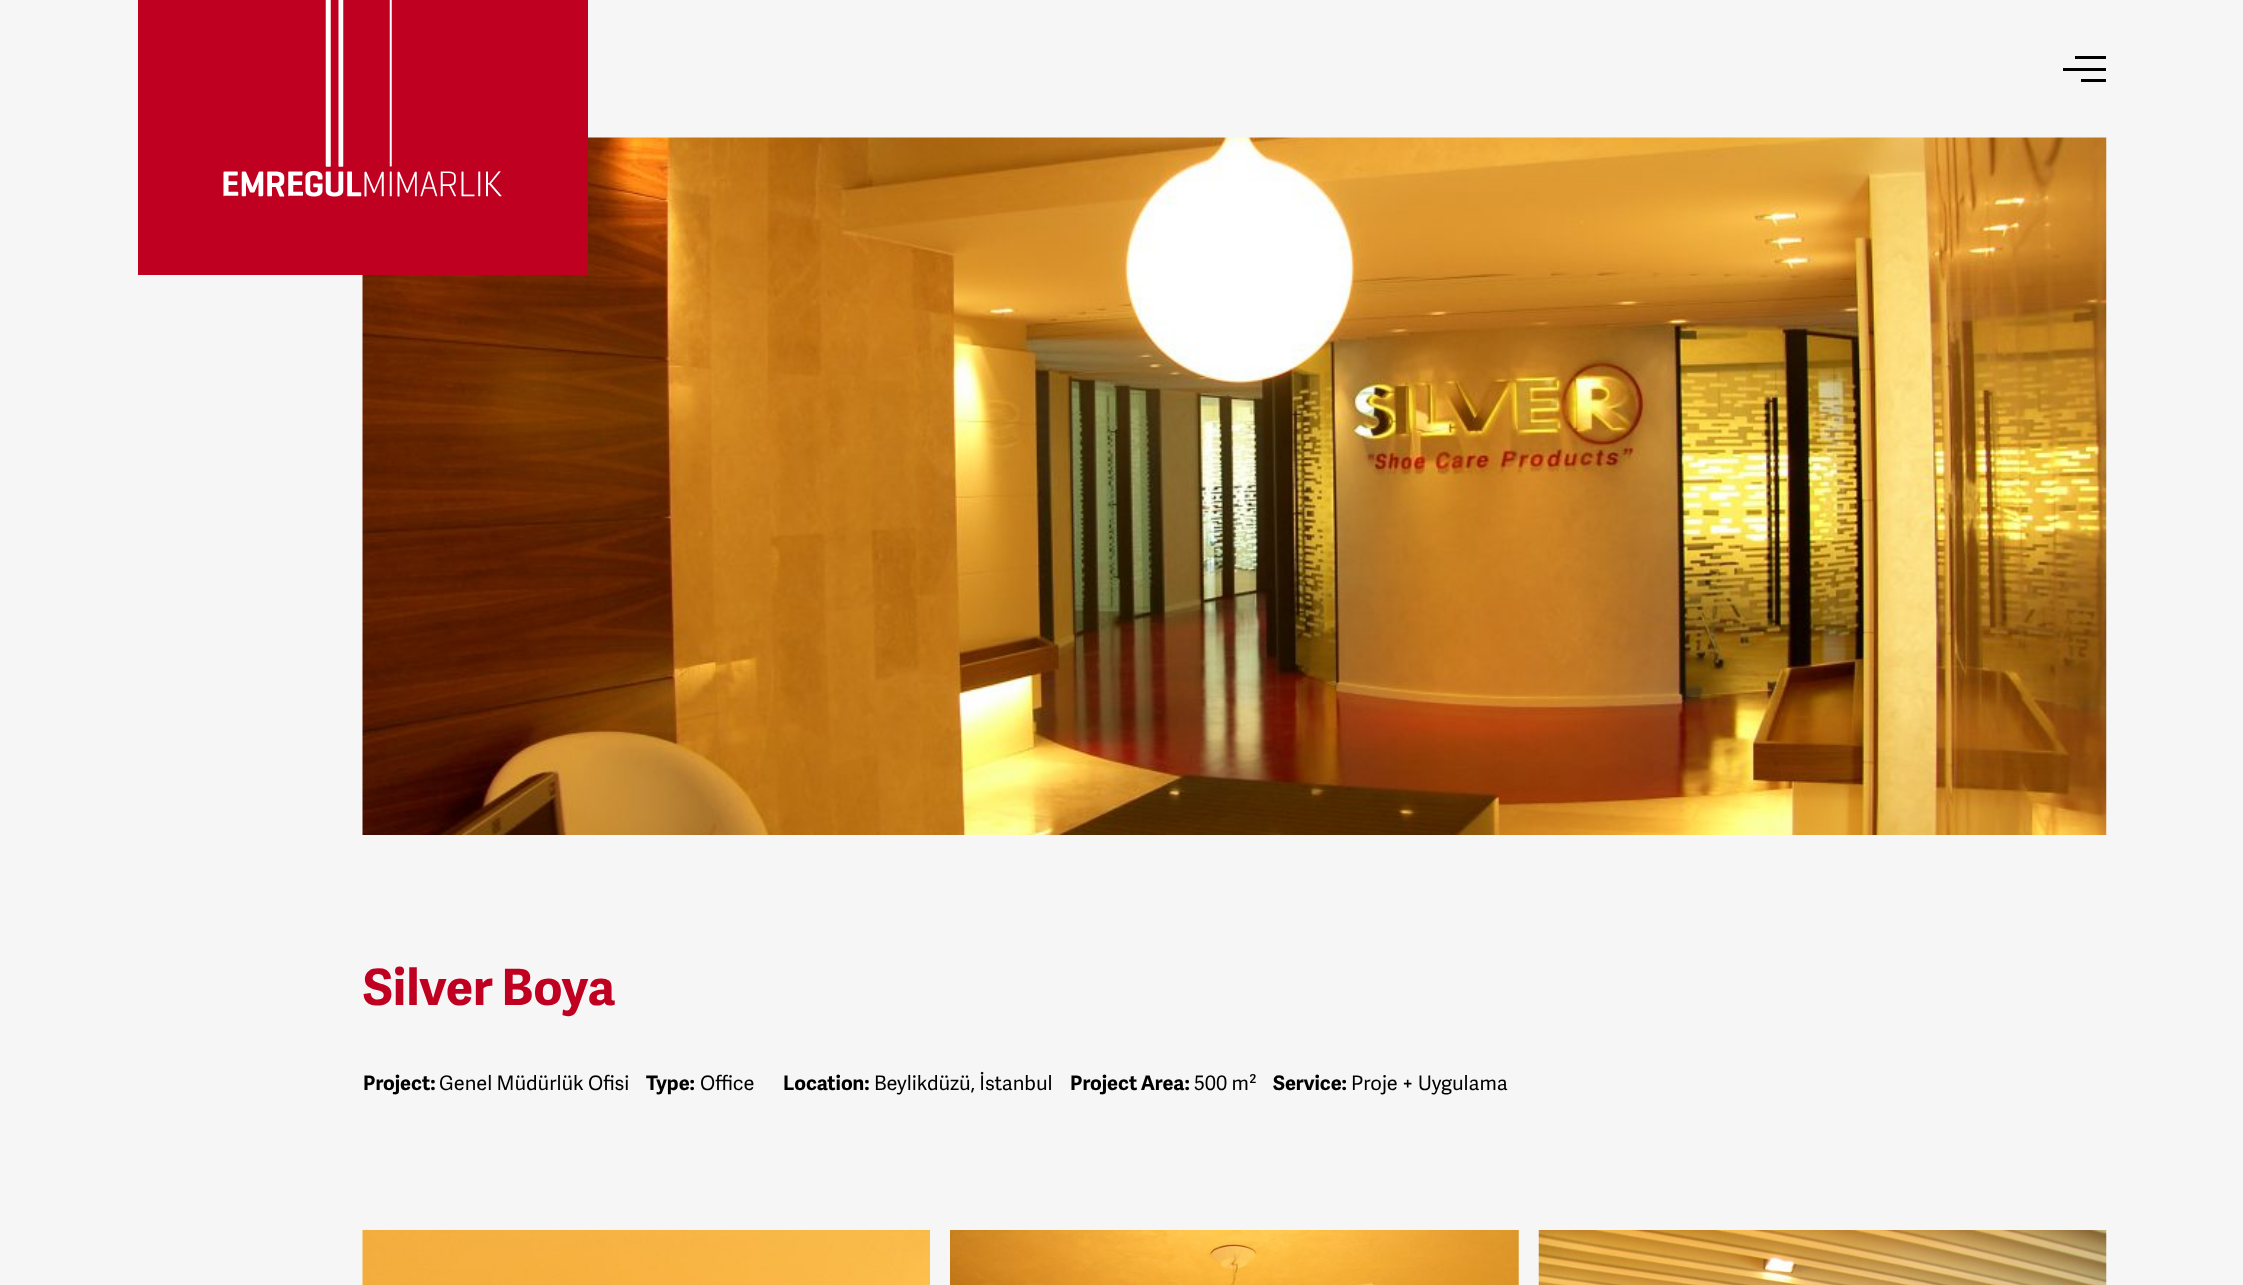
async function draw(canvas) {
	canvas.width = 2243;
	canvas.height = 1285;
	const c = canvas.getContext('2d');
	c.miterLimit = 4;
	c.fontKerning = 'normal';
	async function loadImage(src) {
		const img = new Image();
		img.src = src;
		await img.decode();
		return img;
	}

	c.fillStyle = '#f6f6f6';
	c.fillRect(0, 0, 2243, 1285);
	c.drawImage(await loadImage('img2.png'), 362, 137, 1745, 698);
	c.drawImage(await loadImage('img1.png'), 138, 0, 450, 275);
	for (const [x, y, w, h, color] of [
		[2075, 56, 31, 3, '#000'],
		[2063, 68, 43, 3, '#000'],
		[2081, 79, 25, 3, '#000'],
	]) {
		c.fillStyle = color;
		c.fillRect(x, y, w, h);
	}
	c.font = 'bold 50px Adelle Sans';
	c.fillStyle = '#c00020';
	c.fillText('Silver Boya', 363, 1005);
	c.font = 'bold 20px Adelle Sans';
	c.fillStyle = '#000';
	c.fillText('Project:', 363, 1090);
	c.font = '20px Adelle Sans';
	c.fillText('Genel Müdürlük Ofisi', 439, 1090);
	c.font = 'bold 20px Adelle Sans';
	c.fillText('Type:', 646, 1090);
	c.font = '20px Adelle Sans';
	c.fillText('Office', 700, 1090);
	c.font = 'bold 20px Adelle Sans';
	c.fillText('Location:', 783, 1090);
	c.font = '20px Adelle Sans';
	c.fillText('Beylikdüzü, İstanbul', 874, 1090);
	c.font = 'bold 20px Adelle Sans';
	c.fillText('Project Area:', 1070, 1090);
	c.font = '20px Adelle Sans';
	c.fillText('500 m²', 1194, 1090);
	c.font = 'bold 20px Adelle Sans';
	c.fillText('Service:', 1273, 1090);
	c.font = '20px Adelle Sans';
	c.fillText('Proje + Uygulama', 1351, 1090);
	c.drawImage(await loadImage('img3.png'), 362, 1230, 568, 55);
	c.drawImage(await loadImage('img4.png'), 950, 1230, 569, 55);
	c.drawImage(await loadImage('img5.png'), 1538, 1230, 569, 55);
}

draw(document.querySelector('canvas'));
